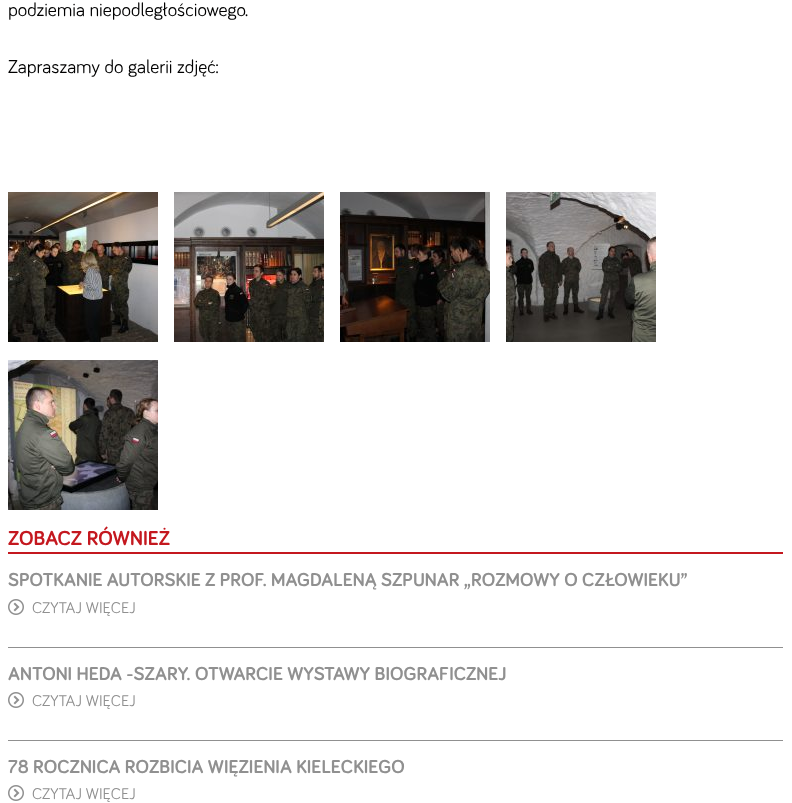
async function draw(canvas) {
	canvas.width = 792;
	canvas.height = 803;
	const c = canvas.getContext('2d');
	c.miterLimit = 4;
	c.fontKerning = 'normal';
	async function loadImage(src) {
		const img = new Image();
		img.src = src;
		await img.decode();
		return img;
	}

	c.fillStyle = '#fff';
	c.fillRect(0, 0, 792, 803);
	c.font = '19.2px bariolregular';
	c.fillStyle = '#010000';
	c.fillText('podziemia niepodległościowego.', 8, 16);
	c.fillText('Zapraszamy do galerii zdjęć:', 8, 73);
	c.drawImage(await loadImage('img1.png'), 8, 192, 150, 150);
	c.drawImage(await loadImage('img2.png'), 174, 192, 150, 150);
	c.drawImage(await loadImage('img3.png'), 340, 192, 150, 150);
	c.drawImage(await loadImage('img4.png'), 506, 192, 150, 150);
	c.drawImage(await loadImage('img5.png'), 8, 360, 150, 150);
	c.fillStyle = '#c4181f';
	c.fillRect(8, 552, 775, 2);
	c.font = 'bold 20.75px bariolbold';
	c.fillText('ZOBACZ RÓWNIEŻ', 8, 545);
	c.fillStyle = '#909090';
	c.fillRect(8, 647, 775, 1);
	c.font = 'bold 19.2px bariolbold';
	c.fillText('SPOTKANIE AUTORSKIE Z PROF. MAGDALENĄ SZPUNAR „ROZMOWY O CZŁOWIEKU”', 8, 586);
	c.drawImage(await loadImage('img6.png'), 8, 599, 16, 16);
	c.font = '16px bariolregular';
	c.fillText('CZYTAJ WIĘCEJ', 32, 613);
	c.fillRect(8, 740, 775, 1);
	c.font = 'bold 19.2px bariolbold';
	c.fillText('ANTONI HEDA -SZARY. OTWARCIE WYSTAWY BIOGRAFICZNEJ', 8, 680);
	c.drawImage(await loadImage('img6.png'), 8, 692, 16, 16);
	c.font = '16px bariolregular';
	c.fillText('CZYTAJ WIĘCEJ', 32, 706);
	c.font = 'bold 19.2px bariolbold';
	c.fillText('78 ROCZNICA ROZBICIA WIĘZIENIA KIELECKIEGO', 8, 773);
	c.drawImage(await loadImage('img6.png'), 8, 785, 16, 16);
	c.font = '16px bariolregular';
	c.fillText('CZYTAJ WIĘCEJ', 32, 799);
}

draw(document.querySelector('canvas'));
